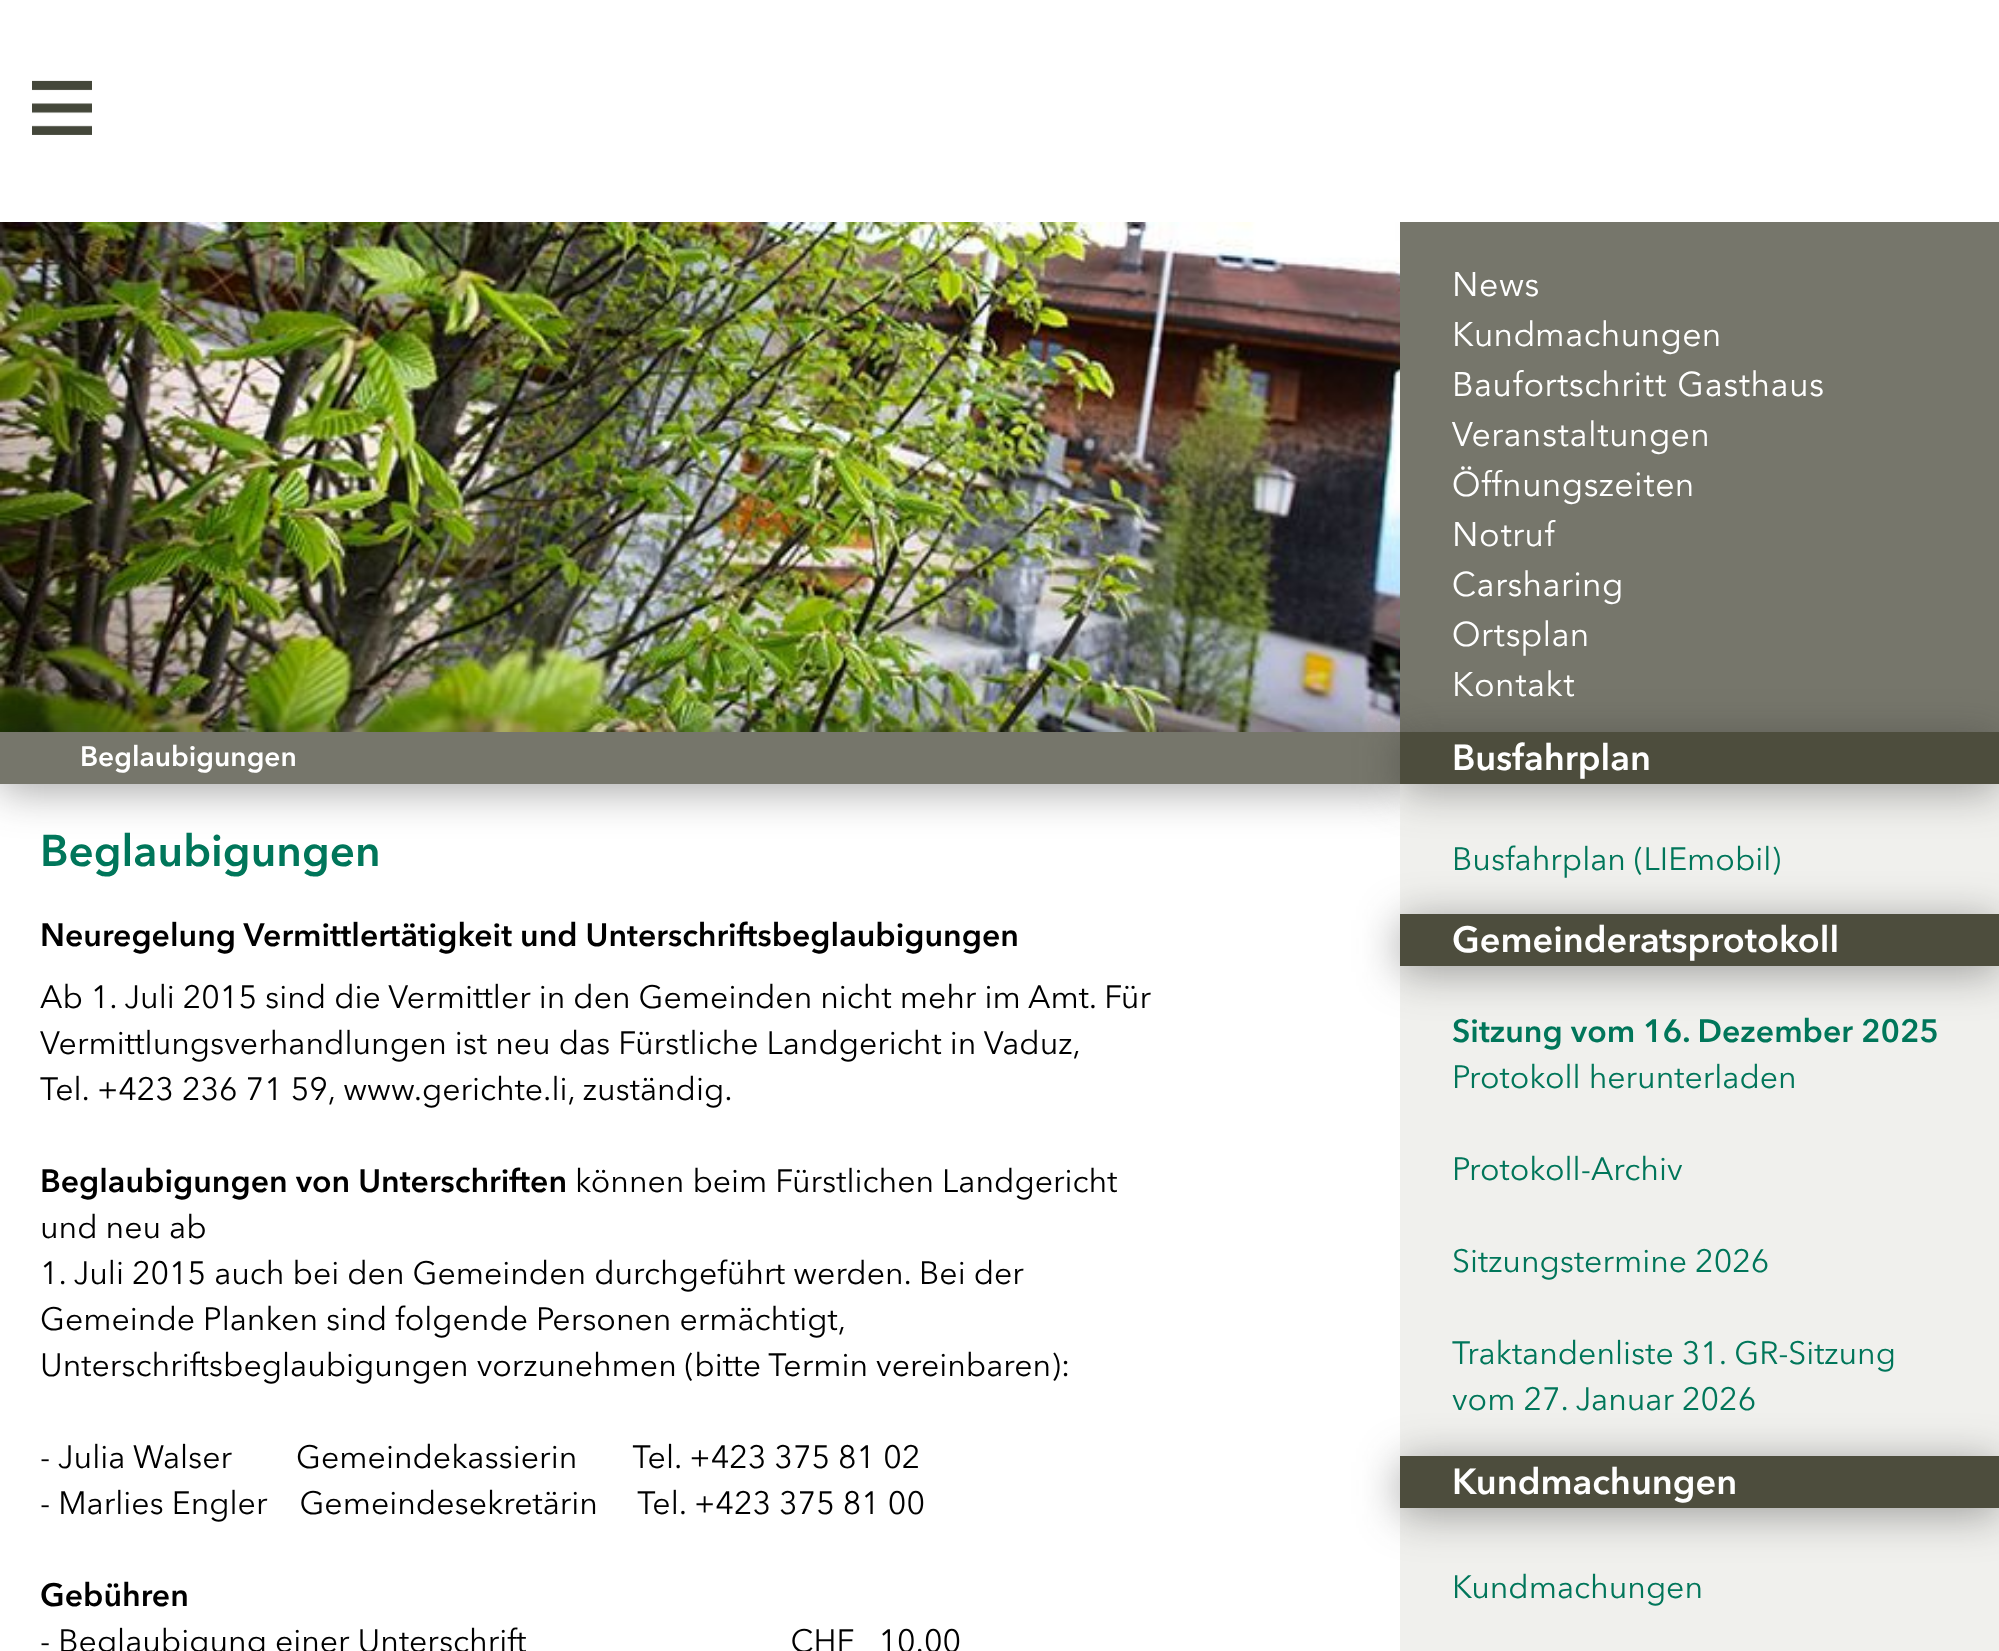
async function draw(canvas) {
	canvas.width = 1999;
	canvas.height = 1651;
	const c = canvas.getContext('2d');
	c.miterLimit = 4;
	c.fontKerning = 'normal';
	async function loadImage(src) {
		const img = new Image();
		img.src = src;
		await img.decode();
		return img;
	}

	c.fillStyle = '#fff';
	c.fillRect(0, 0, 1999, 1651);
	c.drawImage(await loadImage('img1.png'), 32, 80, 60, 55);
	c.drawImage(await loadImage('img2.png'), 0, 222, 1400, 510);
	c.fillStyle = '#76766b';
	c.fillRect(1400, 222, 599, 510);
	c.letterSpacing = '0.9px';
	c.font = '34px "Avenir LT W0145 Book"';
	c.fillStyle = '#fff';
	for (const [text, x, y] of [
		['News', 1452, 296],
		['Kundmachungen', 1452, 346],
		['Baufortschritt Gasthaus', 1452, 396],
		['Veranstaltungen', 1452, 446],
		['Öffnungszeiten', 1452, 496],
		['Notruf', 1452, 546],
		['Carsharing', 1452, 596],
		['Ortsplan', 1452, 646],
		['Kontakt', 1452, 696],
	]) {
		c.fillText(text, x, y);
	}
	c.fillStyle = '#32323273';
	c.filter = 'blur(22px)';
	c.beginPath();
	c.rect(0, 738, 1400, 52);
	c.fill();
	c.filter = 'none';
	c.fillStyle = '#76766b';
	c.fillRect(0, 732, 1400, 52);
	c.letterSpacing = '0px';
	c.font = 'bold 28px Avenir Next';
	c.fillStyle = '#fff';
	c.fillText('Beglaubigungen', 80, 766);
	c.font = 'bold 44px Avenir Next';
	c.fillStyle = '#00765a';
	c.fillText('Beglaubigungen', 40, 866);
	c.font = 'bold 32px Avenir Next';
	c.fillStyle = '#000';
	c.fillText('Neuregelung Vermittlertätigkeit und Unterschriftsbeglaubigungen', 40, 946);
	c.font = '32px "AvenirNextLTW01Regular"';
	for (const [text, x, y] of [
		['Ab 1. Juli 2015 sind die Vermittler in den Gemeinden nicht mehr im Amt. Für', 40, 1008],
		['Vermittlungsverhandlungen ist neu das Fürstliche Landgericht in Vaduz,', 40, 1054],
		['Tel. +423 236 71 59, www.gerichte.li, zuständig.', 40, 1100],
	]) {
		c.fillText(text, x, y);
	}
	c.font = 'bold 32px Avenir Next';
	c.fillText('Beglaubigungen von Unterschriften', 40, 1192);
	c.font = '32px "AvenirNextLTW01Regular"';
	for (const [text, x, y] of [
		['können beim Fürstlichen Landgericht', 575, 1192],
		['und neu ab', 40, 1238],
		['1. Juli 2015 auch bei den Gemeinden durchgeführt werden. Bei der', 40, 1284],
		['Gemeinde Planken sind folgende Personen ermächtigt,', 40, 1330],
		['Unterschriftsbeglaubigungen vorzunehmen (bitte Termin vereinbaren):', 40, 1376],
		['- Julia Walser        Gemeindekassierin       Tel. +423 375 81 02', 40, 1468],
		['- Marlies Engler    Gemeindesekretärin     Tel. +423 375 81 00', 40, 1514],
	]) {
		c.fillText(text, x, y);
	}
	c.font = 'bold 32px Avenir Next';
	c.fillText('Gebühren', 40, 1606);
	c.font = '32px "AvenirNextLTW01Regular"';
	c.fillText('- Beglaubigung einer Unterschrift                                 CHF   10.00', 40, 1652);
	c.fillStyle = '#f0f0ed';
	c.fillRect(1400, 784, 599, 867);
	c.fillStyle = '#32323273';
	c.filter = 'blur(22px)';
	c.beginPath();
	c.rect(1400, 738, 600, 52);
	c.fill();
	c.filter = 'none';
	c.fillStyle = '#4d4d3d';
	c.fillRect(1400, 732, 599, 52);
	c.font = 'bold 36px Avenir Next';
	c.fillStyle = '#fff';
	c.fillText('Busfahrplan', 1452, 770);
	c.fillStyle = '#32323273';
	c.filter = 'blur(22px)';
	c.beginPath();
	c.rect(1400, 920, 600, 52);
	c.fill();
	c.filter = 'none';
	c.font = '32px "AvenirNextLTW01Regular"';
	c.fillStyle = '#00765a';
	c.fillText('Busfahrplan (LIEmobil)', 1452, 870);
	c.fillStyle = '#4d4d3d';
	c.fillRect(1400, 914, 599, 52);
	c.font = 'bold 36px Avenir Next';
	c.fillStyle = '#fff';
	c.fillText('Gemeinderatsprotokoll', 1452, 952);
	c.font = 'bold 32px Avenir Next';
	c.fillStyle = '#00765a';
	c.fillText('Sitzung vom 16. Dezember 2025', 1452, 1042);
	c.font = '32px "AvenirNextLTW01Regular"';
	for (const [text, x, y] of [
		['Protokoll herunterladen', 1452, 1088],
		['Protokoll-Archiv', 1452, 1180],
		['Sitzungstermine 2026', 1452, 1272],
		['Traktandenliste 31. GR-Sitzung', 1452, 1364],
	]) {
		c.fillText(text, x, y);
	}
	c.fillStyle = '#32323273';
	c.filter = 'blur(22px)';
	c.beginPath();
	c.rect(1400, 1462, 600, 52);
	c.fill();
	c.filter = 'none';
	c.fillStyle = '#00765a';
	c.fillText('vom 27. Januar 2026', 1452, 1410);
	c.fillStyle = '#4d4d3d';
	c.fillRect(1400, 1456, 599, 52);
	c.font = 'bold 36px Avenir Next';
	c.fillStyle = '#fff';
	c.fillText('Kundmachungen', 1452, 1494);
	c.font = '32px "AvenirNextLTW01Regular"';
	c.fillStyle = '#00765a';
	c.fillText('Kundmachungen', 1452, 1598);
}

draw(document.querySelector('canvas'));
